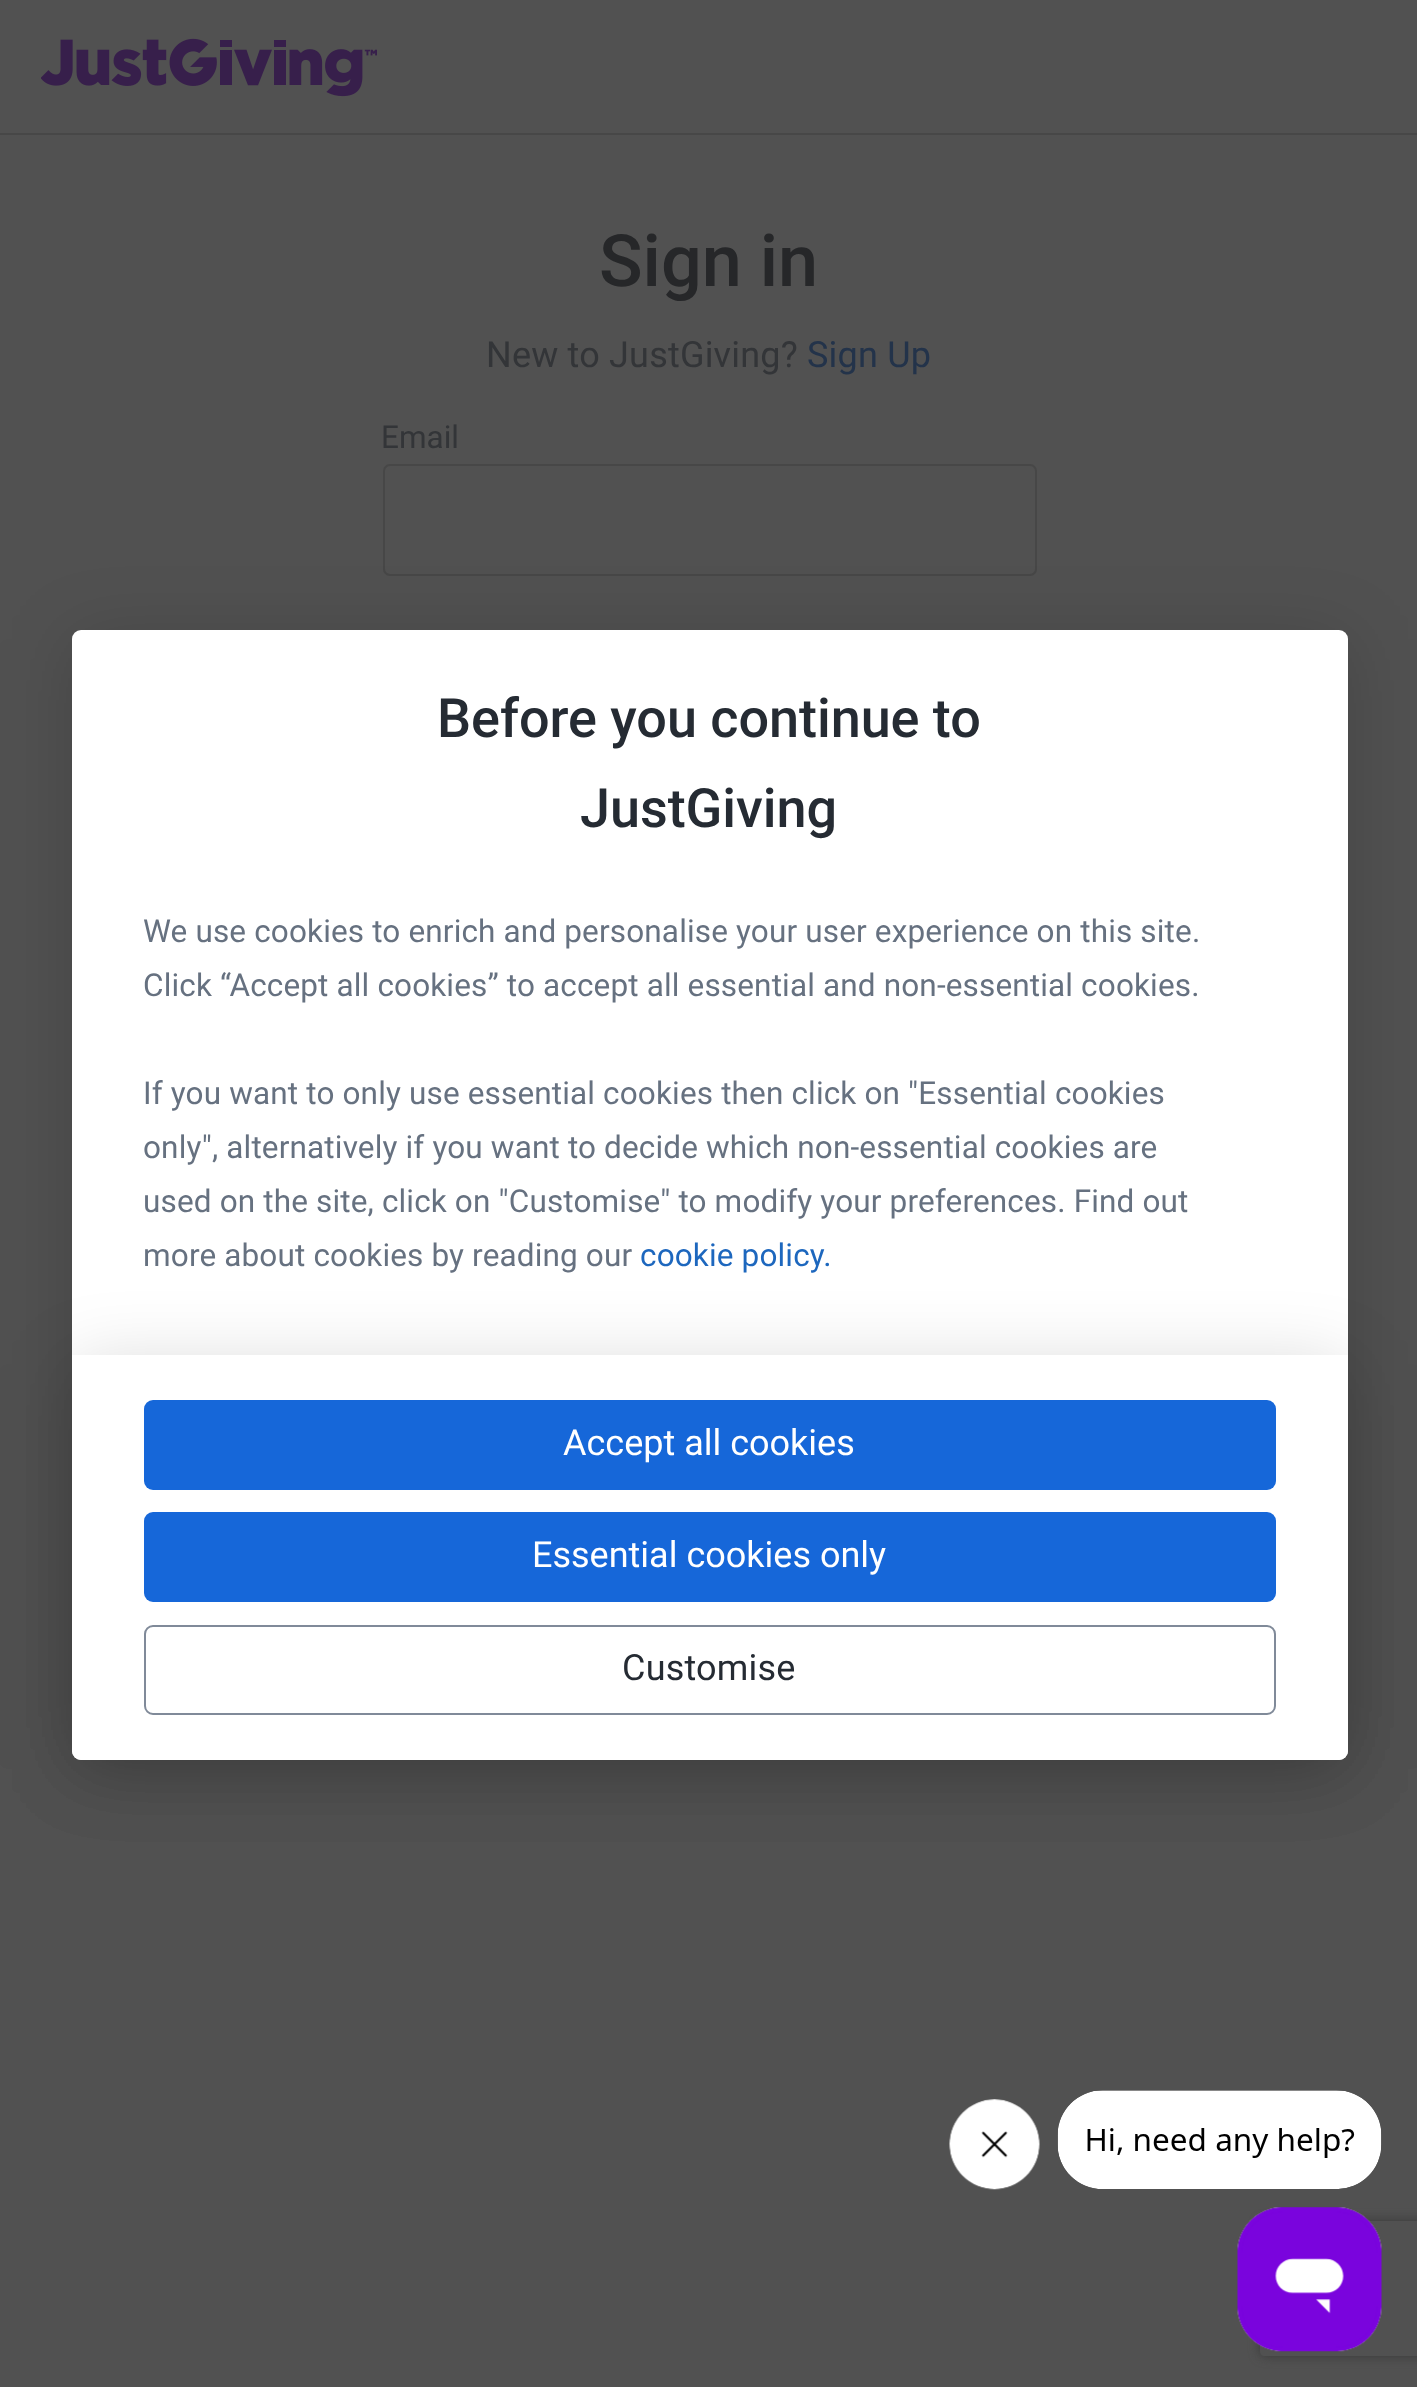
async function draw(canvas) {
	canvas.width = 1417;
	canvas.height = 2387;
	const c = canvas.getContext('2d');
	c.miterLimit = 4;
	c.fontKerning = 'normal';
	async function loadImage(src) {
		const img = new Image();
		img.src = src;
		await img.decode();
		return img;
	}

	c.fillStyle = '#515151';
	c.fillRect(0, 0, 1417, 2387);
	c.fillStyle = '#474747';
	c.fillRect(0, 133, 1417, 2);
	c.drawImage(await loadImage('img1.png'), 41, 38, 336, 59);
	c.font = '500 72px Roboto';
	c.fillStyle = '#262729';
	c.fillText('Sign in', 599, 286);
	c.letterSpacing = '0.2px';
	c.font = '36px Roboto';
	c.fillStyle = '#333538';
	c.fillText('New to JustGiving?', 486, 367);
	c.fillStyle = '#23334a';
	c.fillText('Sign Up', 807, 367);
	c.letterSpacing = '0px';
	c.font = '31.5px Roboto';
	c.fillStyle = '#333538';
	c.fillText('Email', 381, 448);
	c.beginPath();
	c.roundRect(384, 465, 652, 110, 6);
	c.strokeStyle = '#474747';
	c.lineWidth = 2;
	c.stroke();
	c.fillStyle = '#00000026';
	c.filter = 'blur(36px)';
	c.beginPath();
	c.roundRect(72, 639, 1276, 1130, 9);
	c.fill();
	c.filter = 'none';
	c.fillStyle = '#fff';
	c.beginPath();
	c.roundRect(72, 630, 1276, 1130, 9);
	c.fill();
	c.letterSpacing = '-0.05px';
	c.font = '500 54px Roboto';
	c.fillStyle = '#252b33';
	c.fillText('Before you continue to', 437, 737);
	c.fillText('JustGiving', 580, 827);
	c.letterSpacing = '0.15px';
	c.font = '31.5px Roboto';
	c.fillStyle = '#667180';
	for (const [text, x, y] of [
		['We use cookies to enrich and personalise your user experience on this site.', 143, 942],
		['Click “Accept all cookies” to accept all essential and non-essential cookies.', 143, 996],
		['If you want to only use essential cookies then click on "Essential cookies', 143, 1104],
		['only", alternatively if you want to decide which non-essential cookies are', 143, 1158],
		['used on the site, click on "Customise" to modify your preferences. Find out', 143, 1212],
		['more about cookies by reading our', 143, 1266],
	]) {
		c.fillText(text, x, y);
	}
	c.fillStyle = '#1d67be';
	c.fillText('cookie policy.', 640, 1266);
	c.fillStyle = '#00000026';
	c.filter = 'blur(36px)';
	c.beginPath();
	c.roundRect(72, 1364, 1276, 405, 9);
	c.fill();
	c.filter = 'none';
	c.fillStyle = '#fff';
	c.beginPath();
	c.roundRect(72, 1355, 1276, 405, [0, 0, 9, 9]);
	c.fill();
	c.fillStyle = '#1667d9';
	c.beginPath();
	c.roundRect(144, 1400, 1132, 90, 9);
	c.fill();
	c.letterSpacing = '0px';
	c.font = '36px Roboto';
	c.fillStyle = '#fff';
	c.fillText('Accept all cookies', 563, 1455);
	c.fillStyle = '#1667d9';
	c.beginPath();
	c.roundRect(144, 1512, 1132, 90, 9);
	c.fill();
	c.fillStyle = '#fff';
	c.fillText('Essential cookies only', 532, 1567);
	c.beginPath();
	c.roundRect(145, 1626, 1130, 88, 8);
	c.strokeStyle = '#808a99';
	c.stroke();
	c.letterSpacing = '0.2px';
	c.fillStyle = '#252b33';
	c.fillText('Customise', 622, 1680);
	c.drawImage(await loadImage('img2.png'), 949, 2099, 91, 91);
	c.drawImage(await loadImage('img3.png'), 1057, 2090, 325, 99);
	c.save();
	c.beginPath();
	c.moveTo(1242, 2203);
	c.lineTo(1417, 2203);
	c.lineTo(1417, 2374);
	c.lineTo(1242, 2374);
	c.closePath();
	c.moveTo(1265, 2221);
	c.lineTo(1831, 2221);
	c.bezierCurveTo(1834, 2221, 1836, 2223, 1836, 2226);
	c.lineTo(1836, 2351);
	c.bezierCurveTo(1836, 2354, 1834, 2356, 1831, 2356);
	c.lineTo(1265, 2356);
	c.bezierCurveTo(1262, 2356, 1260, 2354, 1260, 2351);
	c.lineTo(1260, 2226);
	c.bezierCurveTo(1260, 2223, 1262, 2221, 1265, 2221);
	c.closePath();
	c.clip('evenodd');
	c.fillStyle = '#383838';
	c.filter = 'blur(5.5px)';
	c.beginPath();
	c.roundRect(1260, 2221, 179, 135, 5);
	c.fill();
	c.filter = 'none';
	c.restore();
	c.drawImage(await loadImage('img4.png'), 1237, 2207, 145, 145);
}

draw(document.querySelector('canvas'));
